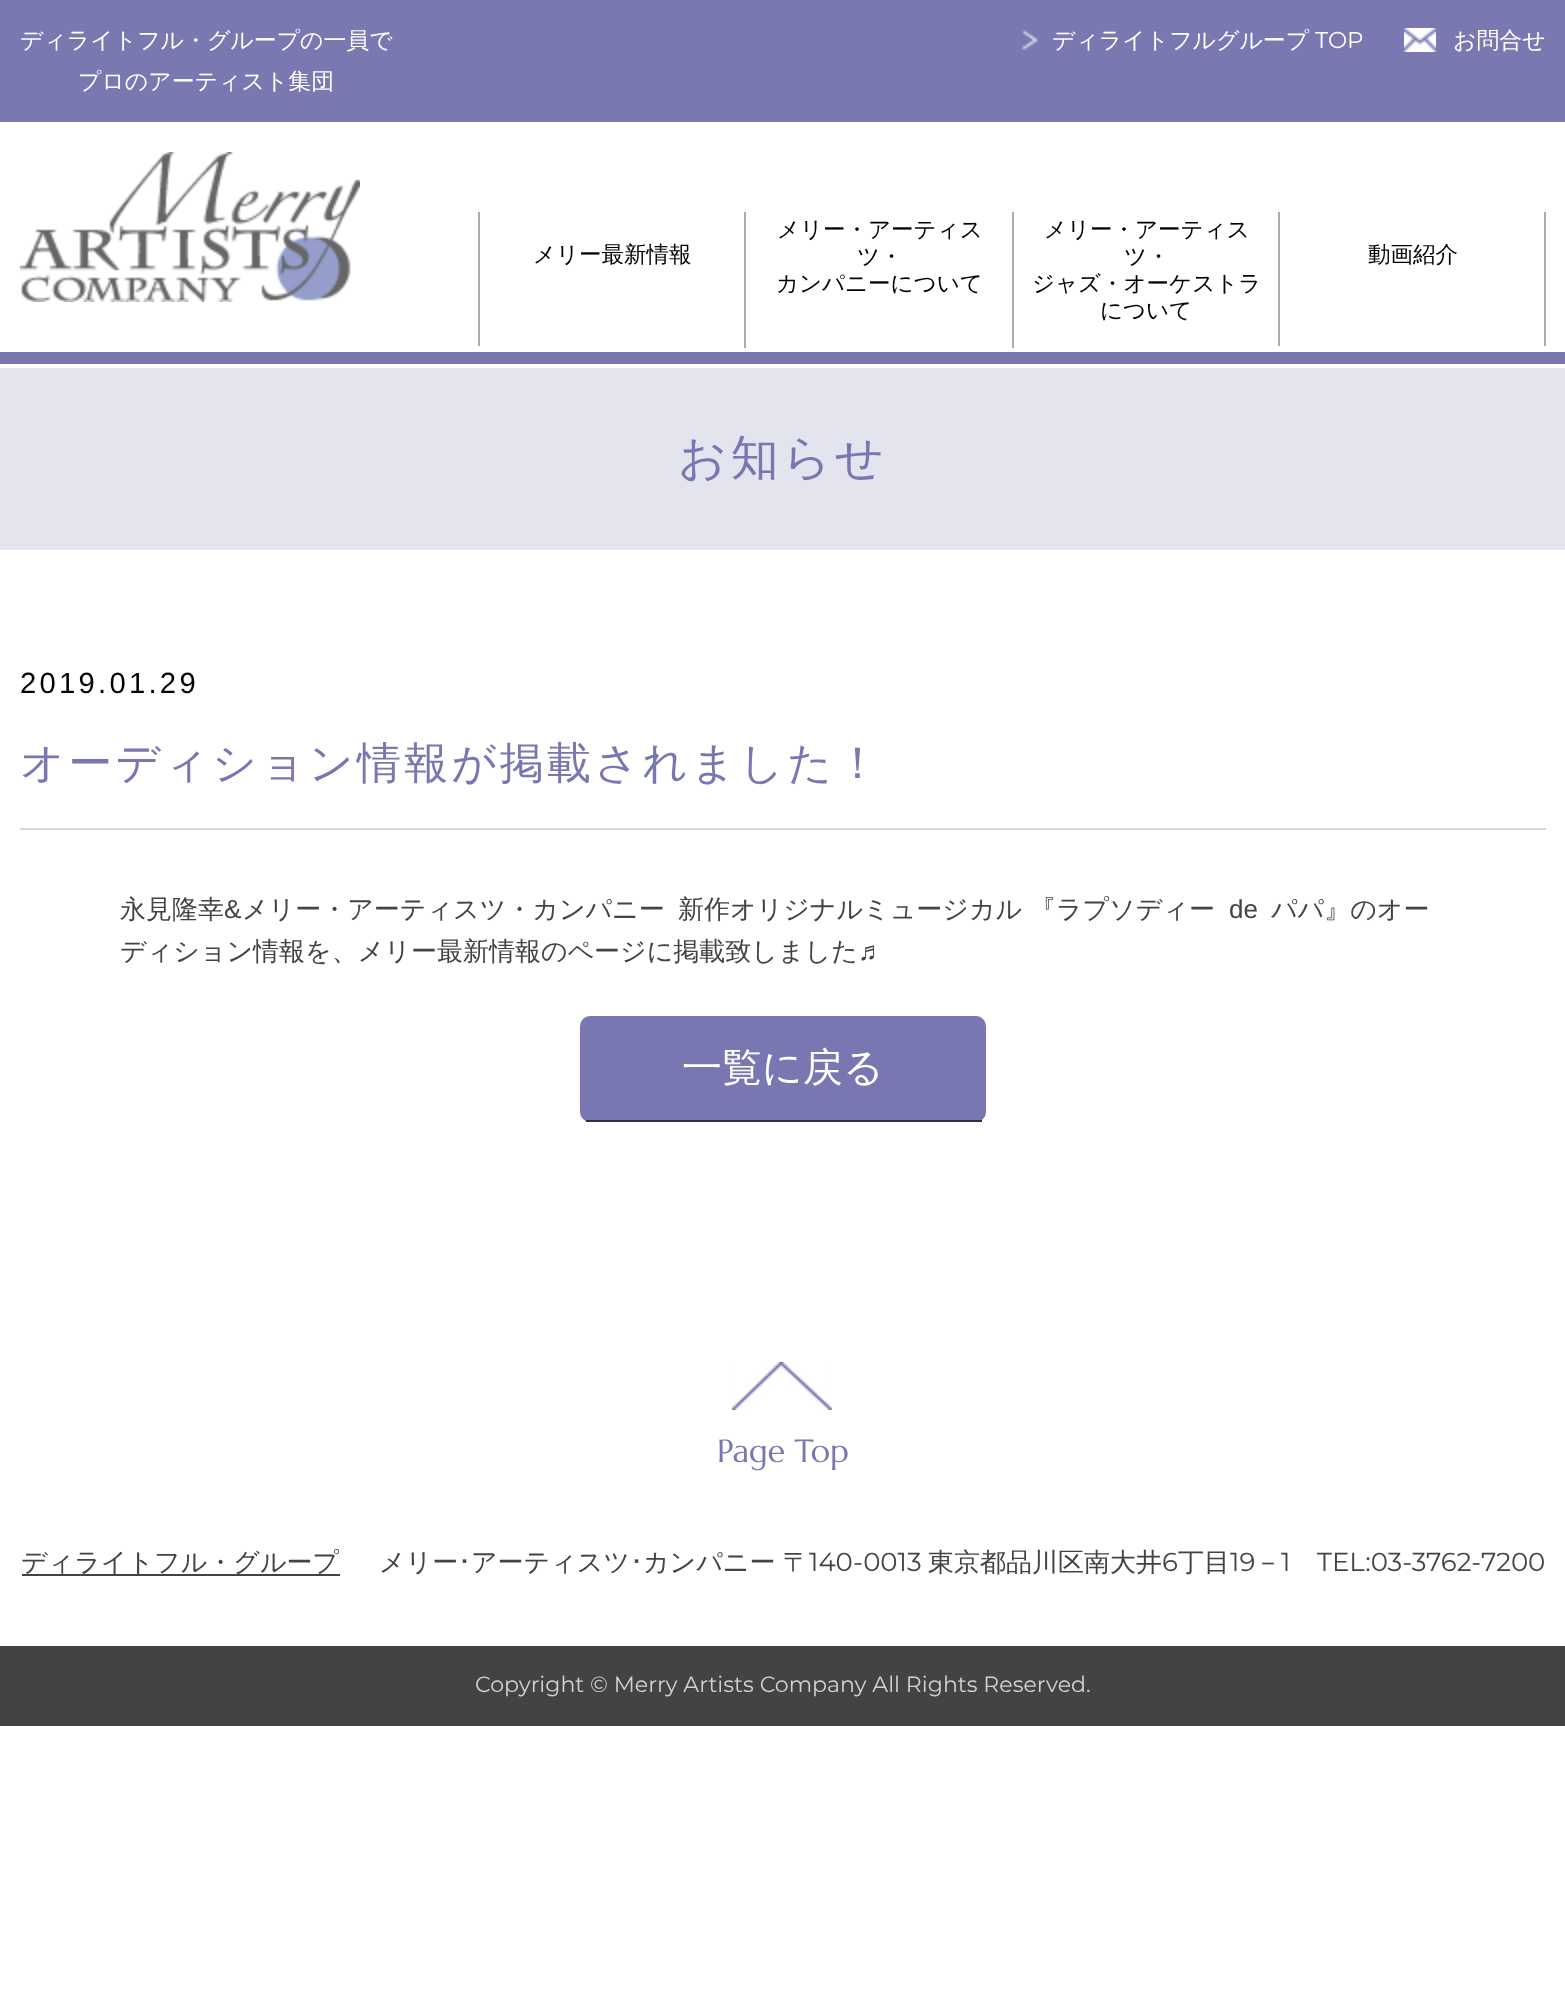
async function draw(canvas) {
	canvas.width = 1565;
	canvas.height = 2012;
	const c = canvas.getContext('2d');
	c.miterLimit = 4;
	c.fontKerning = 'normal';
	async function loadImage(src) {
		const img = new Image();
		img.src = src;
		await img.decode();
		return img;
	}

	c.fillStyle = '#fff';
	c.fillRect(0, 0, 1565, 2012);
	c.fillStyle = '#7978b0';
	c.fillRect(0, 0, 1565, 122);
	c.font = '500 22.9px WenQuanYi Zen Hei';
	c.fillStyle = '#fff';
	c.fillText('ディライトフル・グループの一員で', 20, 48);
	c.fillText('プロのアーティスト集団', 78, 89);
	c.drawImage(await loadImage('img1.png'), 1022, 30, 16, 20);
	c.fillText('ディライトフルグループ', 1052, 48);
	c.font = '22.9px Montserrat';
	c.fillText('TOP', 1315, 48);
	c.drawImage(await loadImage('img2.png'), 1404, 28, 32, 24);
	c.font = '500 22.9px WenQuanYi Zen Hei';
	c.fillText('お問合せ', 1453, 48);
	c.drawImage(await loadImage('img3.png'), 20, 152, 340, 150);
	c.fillStyle = '#acacac';
	c.fillRect(478, 212, 2, 134);
	c.font = '500 22.5px WenQuanYi Zen Hei';
	c.fillStyle = '#000';
	c.fillText('メリー最新情報', 533, 262);
	c.fillStyle = '#acacac';
	c.fillRect(744, 212, 2, 136);
	c.fillStyle = '#000';
	for (const [text, x, y] of [
		['メリー・アーティス', 777, 237],
		['ツ・', 857, 264],
		['カンパニーについて', 776, 291],
	]) {
		c.fillText(text, x, y);
	}
	c.fillStyle = '#acacac';
	c.fillRect(1012, 212, 2, 136);
	c.fillStyle = '#000';
	for (const [text, x, y] of [
		['メリー・アーティス', 1044, 237],
		['ツ・', 1124, 264],
		['ジャズ・オーケストラ', 1032, 291],
		['について', 1100, 318],
	]) {
		c.fillText(text, x, y);
	}
	c.fillStyle = '#acacac';
	c.fillRect(1544, 212, 2, 134);
	c.fillRect(1278, 212, 2, 134);
	c.fillStyle = '#000';
	c.fillText('動画紹介', 1368, 262);
	c.fillStyle = '#7977b2';
	c.fillRect(0, 352, 1565, 12);
	c.fillStyle = '#e4e4ef';
	c.fillRect(0, 368, 1565, 182);
	c.letterSpacing = '3.5px';
	c.font = '500 48px WenQuanYi Zen Hei';
	c.fillStyle = '#7977b2';
	c.fillText('お知らせ', 678, 474);
	c.fillStyle = '#d7d7d7';
	c.fillRect(20, 828, 1526, 2);
	c.letterSpacing = '3.25px';
	c.font = '29.25px Liberation Sans';
	c.fillStyle = '#000';
	c.fillText('2019.01.29', 20, 693);
	c.font = '500 44px WenQuanYi Zen Hei';
	c.fillStyle = '#7977b2';
	c.fillText('オーディション情報が掲載されました！', 20, 778);
	c.letterSpacing = '0px';
	c.font = '500 26px WenQuanYi Zen Hei';
	c.fillStyle = '#434343';
	c.fillText('永見隆幸', 120, 918);
	c.font = '26px Liberation Sans';
	c.fillText('&', 224, 918);
	c.font = '500 26px WenQuanYi Zen Hei';
	c.fillText('メリー・アーティスツ・カンパニー', 242, 918);
	c.fillText('新作オリジナルミュージカル 『ラプソディー', 678, 918);
	c.font = '26px Liberation Sans';
	c.fillText('de', 1229, 918);
	c.font = '500 26px WenQuanYi Zen Hei';
	c.fillText('パパ』のオー', 1271, 918);
	c.fillText('ディション情報を、メリー最新情報のページに掲載致しました', 120, 960);
	c.font = '26px Liberation Sans';
	c.fillText('♬', 858, 960);
	c.fillStyle = '#7977b2';
	c.beginPath();
	c.roundRect(580, 1016, 406, 106, 10);
	c.fill();
	c.fillStyle = '#333';
	c.fillRect(586, 1120, 396, 2);
	c.font = '500 40px WenQuanYi Zen Hei';
	c.fillStyle = '#fff';
	c.fillText('一覧に戻る', 682, 1081);
	c.drawImage(await loadImage('img4.png'), 732, 1362, 100, 48);
	c.font = '32px Marcellus';
	c.fillStyle = '#7977b2';
	c.fillText('Page Top', 717, 1462);
	c.fillStyle = '#434343';
	c.fillRect(22, 1574, 318, 2);
	c.font = '500 26px WenQuanYi Zen Hei';
	c.fillText('ディライトフル・グループ', 21, 1571);
	c.fillText('メリー', 379, 1571);
	c.font = '26px IPAPGothic';
	c.fillText('･', 458, 1571);
	c.font = '500 26px WenQuanYi Zen Hei';
	c.fillText('アーティスツ', 471, 1571);
	c.font = '26px IPAPGothic';
	c.fillText('･', 630, 1571);
	c.font = '500 26px WenQuanYi Zen Hei';
	c.fillText('カンパニー', 643, 1571);
	c.fillText('〒', 783, 1571);
	c.font = '26px Montserrat';
	c.fillText('140-0013', 809, 1571);
	c.font = '500 26px WenQuanYi Zen Hei';
	c.fillText('東京都品川区南大井', 928, 1571);
	c.font = '26px Montserrat';
	c.fillText('6', 1162, 1571);
	c.font = '500 26px WenQuanYi Zen Hei';
	c.fillText('丁目', 1178, 1571);
	c.font = '26px Montserrat';
	for (const [text, x, y] of [
		['19', 1230, 1571],
		['1', 1281, 1571],
		['TEL:03-3762-7200', 1317, 1571],
	]) {
		c.fillText(text, x, y);
	}
	c.font = '500 26px WenQuanYi Zen Hei';
	c.fillText('－', 1255, 1571);
	c.fillRect(0, 1646, 1565, 80);
	c.font = '22.1px Montserrat';
	c.fillStyle = '#d1d1d1';
	c.fillText('Copyright © Merry Artists Company All Rights Reserved.', 475, 1692);
}

draw(document.querySelector('canvas'));
